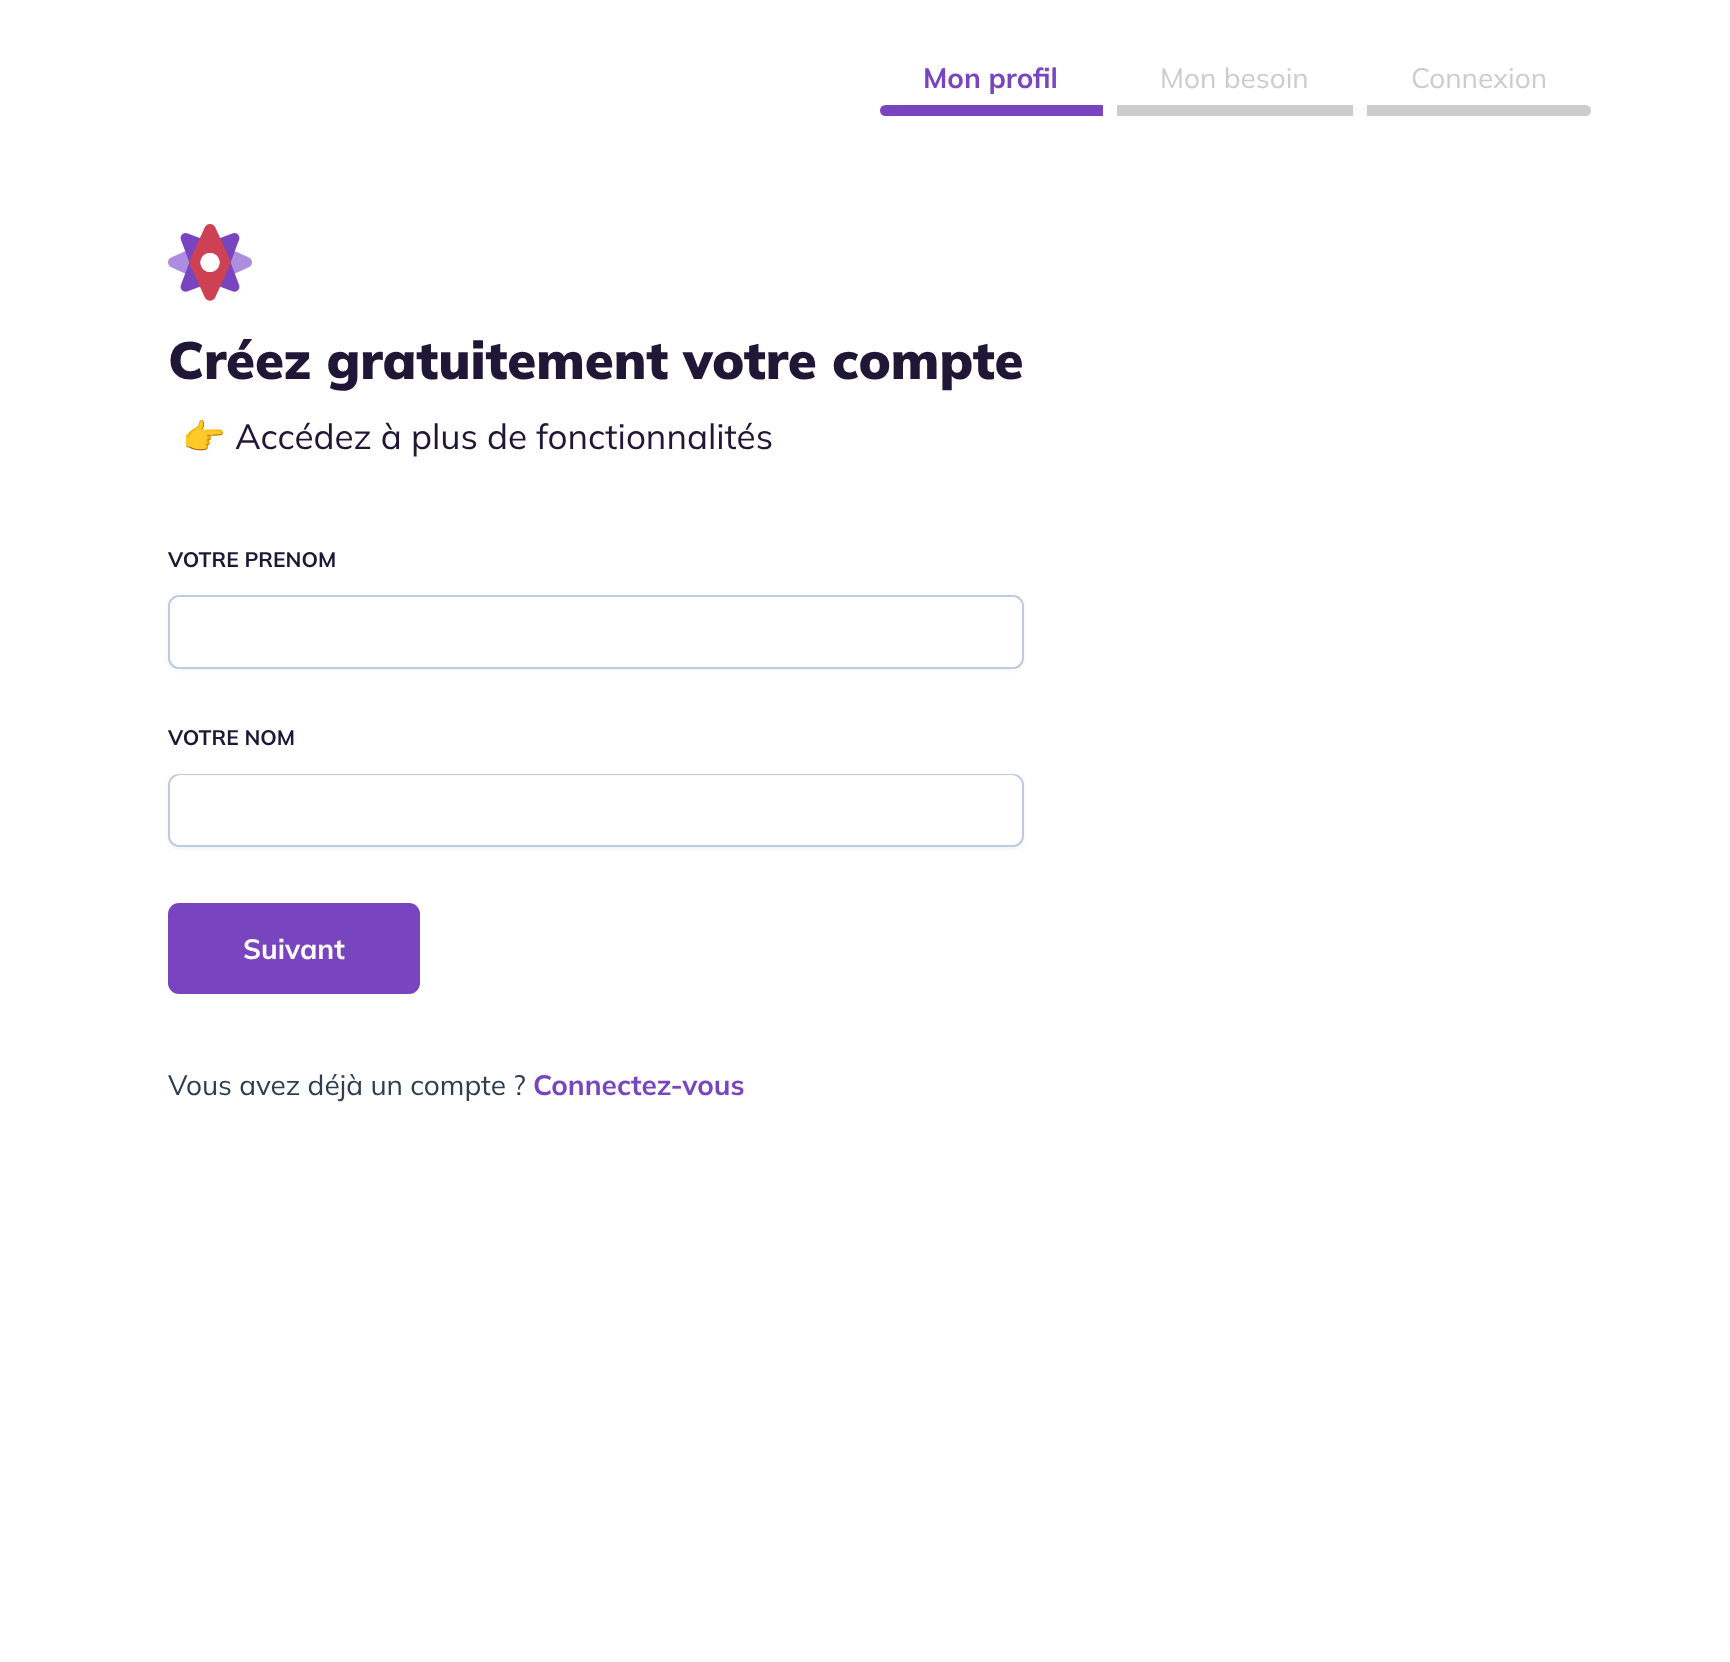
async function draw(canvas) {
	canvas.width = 1730;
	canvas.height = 1662;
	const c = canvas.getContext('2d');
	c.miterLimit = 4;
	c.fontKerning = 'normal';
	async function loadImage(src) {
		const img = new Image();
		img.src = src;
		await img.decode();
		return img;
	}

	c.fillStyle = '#fff';
	c.fillRect(0, 0, 1730, 1662);
	c.font = '200 28px "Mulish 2"';
	c.fillStyle = '#7944c0';
	c.fillText('Mon profil', 923, 88);
	c.beginPath();
	c.roundRect(880, 105, 223, 11, [5.5, 0, 0, 5.5]);
	c.fill();
	c.font = '200 28px Mulish';
	c.fillStyle = '#ccc';
	c.fillText('Mon besoin', 1160, 88);
	c.fillRect(1117, 105, 236, 11);
	c.fillText('Connexion', 1411, 88);
	c.beginPath();
	c.roundRect(1367, 105, 224, 11, [0, 5.5, 5.5, 0]);
	c.fill();
	c.drawImage(await loadImage('img1.png'), 168, 224, 84, 77);
	c.font = '900 52.5px Mulish';
	c.fillStyle = '#1f1735';
	c.fillText('Créez gratuitement votre compte', 168, 379);
	c.font = '35px Noto Color Emoji';
	c.fillText('👉', 182, 449);
	c.font = '200 35px Mulish';
	c.fillText('Accédez à plus de fonctionnalités', 235, 449);
	c.font = '200 21px "Mulish 2"';
	c.fillText('VOTRE PRENOM', 168, 567);
	c.fillStyle = '#0000000d';
	c.filter = 'blur(2px)';
	c.beginPath();
	c.roundRect(168, 597, 856, 73, 11);
	c.fill();
	c.filter = 'none';
	c.fillStyle = '#fff';
	c.beginPath();
	c.roundRect(169, 596, 854, 72, 10);
	c.fill();
	c.strokeStyle = '#becadd';
	c.lineWidth = 2;
	c.stroke();
	c.beginPath();
	c.roundRect(170, 597, 852, 70, 11);
	c.fill();
	c.fillStyle = '#1f1735';
	c.fillText('VOTRE NOM', 168, 745);
	c.fillStyle = '#0000000d';
	c.filter = 'blur(2px)';
	c.beginPath();
	c.roundRect(168, 775, 856, 74, 11);
	c.fill();
	c.filter = 'none';
	c.fillStyle = '#fff';
	c.beginPath();
	c.roundRect(169, 775, 854, 71, 10);
	c.fill();
	c.stroke();
	c.beginPath();
	c.roundRect(170, 775, 852, 70, 11);
	c.fill();
	c.fillStyle = '#7944c0';
	c.beginPath();
	c.roundRect(168, 903, 252, 91, 11);
	c.fill();
	c.font = '200 28px "Mulish 2"';
	c.fillStyle = '#fff';
	c.fillText('Suivant', 243, 959);
	c.font = '200 28px Mulish';
	c.fillStyle = '#2c3e50';
	c.fillText('Vous avez déjà un compte ?', 168, 1095);
	c.font = '200 28px "Mulish 2"';
	c.fillStyle = '#7944c0';
	c.fillText('Connectez-vous', 533, 1095);
}

draw(document.querySelector('canvas'));
